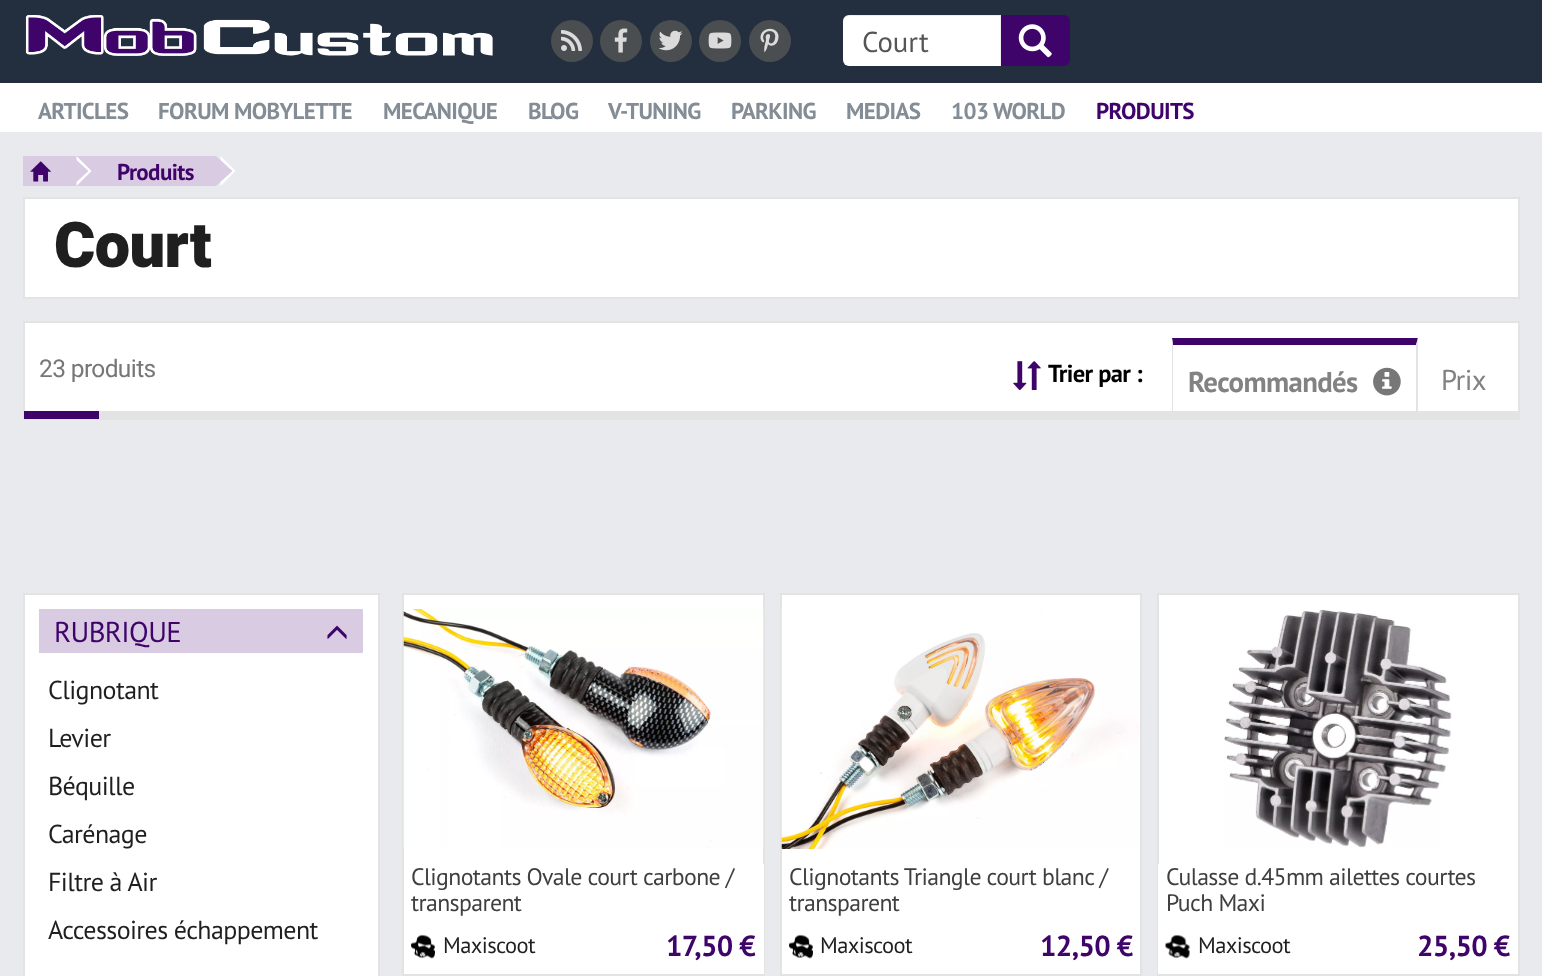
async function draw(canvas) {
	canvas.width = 1542;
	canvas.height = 976;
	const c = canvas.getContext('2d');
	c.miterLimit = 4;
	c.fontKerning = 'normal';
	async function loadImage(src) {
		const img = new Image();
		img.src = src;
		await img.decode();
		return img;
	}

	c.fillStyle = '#e9eaed';
	c.fillRect(0, 0, 1542, 976);
	c.fillStyle = '#232f3e';
	c.fillRect(0, 0, 1542, 83);
	c.drawImage(await loadImage('img1.png'), 25, 15, 468, 41);
	c.fillStyle = '#4b4e50';
	c.beginPath();
	c.arc(572, 41, 21, 0, 2 * Math.PI);
	c.fill();
	c.drawImage(await loadImage('img2.png'), 561, 30, 21, 21);
	c.beginPath();
	c.arc(621, 41, 21, 0, 2 * Math.PI);
	c.fill();
	c.drawImage(await loadImage('img3.png'), 614, 28, 14, 25);
	c.beginPath();
	c.arc(671, 41, 21, 0, 2 * Math.PI);
	c.fill();
	c.drawImage(await loadImage('img4.png'), 658, 30, 25, 21);
	c.beginPath();
	c.arc(720, 41, 21, 0, 2 * Math.PI);
	c.fill();
	c.drawImage(await loadImage('img5.png'), 708, 32, 24, 17);
	c.beginPath();
	c.arc(770, 41, 21, 0, 2 * Math.PI);
	c.fill();
	c.drawImage(await loadImage('img6.png'), 760, 28, 19, 25);
	c.fillStyle = '#fff';
	c.beginPath();
	c.roundRect(843, 15, 158, 51, [6, 0, 0, 6]);
	c.fill();
	c.fillStyle = '#00000012';
	c.beginPath();
	c.moveTo(849, 16);
	c.lineTo(1000, 16);
	c.lineTo(1000, 66);
	c.lineTo(1001, 66);
	c.lineTo(1001, 15);
	c.lineTo(849, 15);
	c.bezierCurveTo(846, 15, 843, 18, 843, 21);
	c.lineTo(843, 22);
	c.bezierCurveTo(843, 19, 846, 16, 849, 16);
	c.closePath();
	c.fill();
	c.font = '28.75px PT Sans';
	c.fillStyle = '#555';
	c.fillText('Court', 862, 52);
	c.fillStyle = '#3f0469';
	c.beginPath();
	c.roundRect(1001, 15, 69, 51, [0, 6, 6, 0]);
	c.fill();
	c.drawImage(await loadImage('img7.png'), 1018, 24, 34, 34);
	c.fillStyle = '#fff';
	c.fillRect(0, 83, 1542, 49);
	c.letterSpacing = '-0.6px';
	c.font = 'bold 23px PT Sans';
	c.fillStyle = '#848d95';
	for (const [text, x, y] of [
		['ARTICLES', 38, 119],
		['FORUM MOBYLETTE', 158, 119],
		['MECANIQUE', 383, 119],
		['BLOG', 528, 119],
		['V-TUNING', 608, 119],
		['PARKING', 731, 119],
		['MEDIAS', 846, 119],
		['103 WORLD', 951, 119],
	]) {
		c.fillText(text, x, y);
	}
	c.fillStyle = '#3f0469';
	c.fillText('PRODUITS', 1096, 119);
	c.fillStyle = '#d9cbe2';
	c.fillRect(23, 156, 193, 30);
	c.fillStyle = '#fff';
	c.beginPath();
	c.moveTo(76.5, 186);
	c.lineTo(76.5, 156);
	c.lineTo(91.5, 171);
	c.closePath();
	c.fill();
	c.fillStyle = '#d9cbe2';
	c.beginPath();
	c.moveTo(72, 186);
	c.lineTo(72, 156);
	c.lineTo(88.5, 171);
	c.closePath();
	c.fill();
	c.drawImage(await loadImage('img8.png'), 30, 161, 21, 21);
	c.fillStyle = '#fff';
	c.beginPath();
	c.moveTo(220.5, 186);
	c.lineTo(220.5, 156);
	c.lineTo(235.5, 171);
	c.closePath();
	c.fill();
	c.fillStyle = '#d9cbe2';
	c.beginPath();
	c.moveTo(216, 186);
	c.lineTo(216, 156);
	c.lineTo(232.5, 171);
	c.closePath();
	c.fill();
	c.fillStyle = '#3f0469';
	c.fillText('Produits', 117, 180);
	c.fillStyle = '#fff';
	c.beginPath();
	c.rect(24, 198, 1495, 100);
	c.fill();
	c.strokeStyle = '#e3e3e3';
	c.lineWidth = 2;
	c.stroke();
	c.font = '900 63px Heebo';
	c.fillStyle = '#1f1f1f';
	c.fillText('Court', 54, 267);
	c.fillStyle = '#fff';
	c.fillRect(25, 323, 1493, 88);
	c.strokeRect(24, 322, 1495, 97);
	c.font = '24.5px Heebo';
	c.fillStyle = '#777';
	c.fillText('23 produits', 39, 377);
	c.drawImage(await loadImage('img9.png'), 1013, 361, 28, 29);
	c.font = 'bold 24.5px PT Sans';
	c.fillStyle = '#000';
	c.fillText('Trier par :', 1048, 382);
	c.fillStyle = '#3f0469';
	c.beginPath();
	c.moveTo(1172, 338);
	c.lineTo(1418, 338);
	c.lineTo(1416, 345);
	c.lineTo(1173, 345);
	c.closePath();
	c.fill();
	c.fillStyle = '#e3e3e3';
	c.beginPath();
	c.moveTo(1418, 338);
	c.lineTo(1418, 411);
	c.lineTo(1416, 411);
	c.lineTo(1416, 345);
	c.closePath();
	c.fill();
	c.beginPath();
	c.moveTo(1172, 411);
	c.lineTo(1172, 338);
	c.lineTo(1173, 345);
	c.lineTo(1173, 411);
	c.closePath();
	c.fill();
	c.font = 'bold 28.75px PT Sans';
	c.fillStyle = '#828282';
	c.fillText('Recommandés', 1188, 392);
	c.drawImage(await loadImage('img10.png'), 1373, 367, 28, 29);
	c.font = '28.75px PT Sans';
	c.fillText('Prix', 1441, 390);
	c.fillStyle = '#e3e3e3';
	c.fillRect(99, 411, 1419, 7);
	c.fillStyle = '#3f0469';
	c.fillRect(24, 411, 75, 8);
	c.fillStyle = '#fff';
	c.beginPath();
	c.rect(24, 594, 355, 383);
	c.fill();
	c.stroke();
	c.fillStyle = '#d9cbe2';
	c.fillRect(39, 609, 324, 44);
	c.fillStyle = '#3f0469';
	c.fillText('RUBRIQUE', 54, 642);
	c.drawImage(await loadImage('img11.png'), 327, 625, 20, 14);
	c.font = '26px PT Sans';
	c.fillStyle = '#1f1f1f';
	for (const [text, x, y] of [
		['Clignotant', 48, 699],
		['Levier', 48, 747],
		['Béquille', 48, 795],
		['Carénage', 48, 843],
		['Filtre à Air', 48, 891],
		['Accessoires échappement', 48, 939],
	]) {
		c.fillText(text, x, y);
	}
	c.fillStyle = '#fff';
	c.fillRect(404, 595, 359, 269);
	c.strokeRect(403, 594, 361, 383);
	c.drawImage(await loadImage('img12.png'), 403, 609, 361, 240);
	c.fillRect(404, 864, 360, 110);
	c.font = '23.8px PT Sans';
	c.fillStyle = '#3f3f3f';
	c.fillText('Clignotants Ovale court carbone /', 411, 885);
	c.fillText('transparent', 411, 911);
	c.drawImage(await loadImage('img13.png'), 411, 934, 24, 25);
	c.font = '22.5px PT Sans';
	c.fillStyle = '#1f1f1f';
	c.fillText('Maxiscoot', 443, 953);
	c.font = 'bold 29px PT Sans';
	c.fillStyle = '#3f0469';
	c.fillText('17,50 €', 666, 956);
	c.fillStyle = '#e3e3e3';
	c.fillRect(404, 974, 360, 2);
	c.fillStyle = '#fff';
	c.fillRect(782, 595, 358, 379);
	c.strokeRect(781, 594, 360, 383);
	c.drawImage(await loadImage('img14.png'), 781, 609, 359, 240);
	c.font = '23.8px PT Sans';
	c.fillStyle = '#3f3f3f';
	c.fillText('Clignotants Triangle court blanc /', 789, 885);
	c.fillText('transparent', 789, 911);
	c.drawImage(await loadImage('img13.png'), 789, 934, 24, 25);
	c.font = '22.5px PT Sans';
	c.fillStyle = '#1f1f1f';
	c.fillText('Maxiscoot', 820, 953);
	c.font = 'bold 29px PT Sans';
	c.fillStyle = '#3f0469';
	c.fillText('12,50 €', 1040, 956);
	c.fillStyle = '#e3e3e3';
	c.fillRect(782, 974, 358, 2);
	c.fillStyle = '#fff';
	c.fillRect(1159, 595, 359, 269);
	c.strokeRect(1158, 594, 361, 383);
	c.drawImage(await loadImage('img15.png'), 1224, 609, 228, 239);
	c.fillRect(1158, 864, 360, 110);
	c.font = '23.8px PT Sans';
	c.fillStyle = '#3f3f3f';
	c.fillText('Culasse d.45mm ailettes courtes', 1166, 885);
	c.fillText('Puch Maxi', 1166, 911);
	c.drawImage(await loadImage('img16.png'), 1165, 934, 25, 25);
	c.font = '22.5px PT Sans';
	c.fillStyle = '#1f1f1f';
	c.fillText('Maxiscoot', 1198, 953);
	c.font = 'bold 29px PT Sans';
	c.fillStyle = '#3f0469';
	c.fillText('25,50 €', 1417, 956);
	c.fillStyle = '#e3e3e3';
	c.fillRect(1158, 974, 360, 2);
}

draw(document.querySelector('canvas'));
